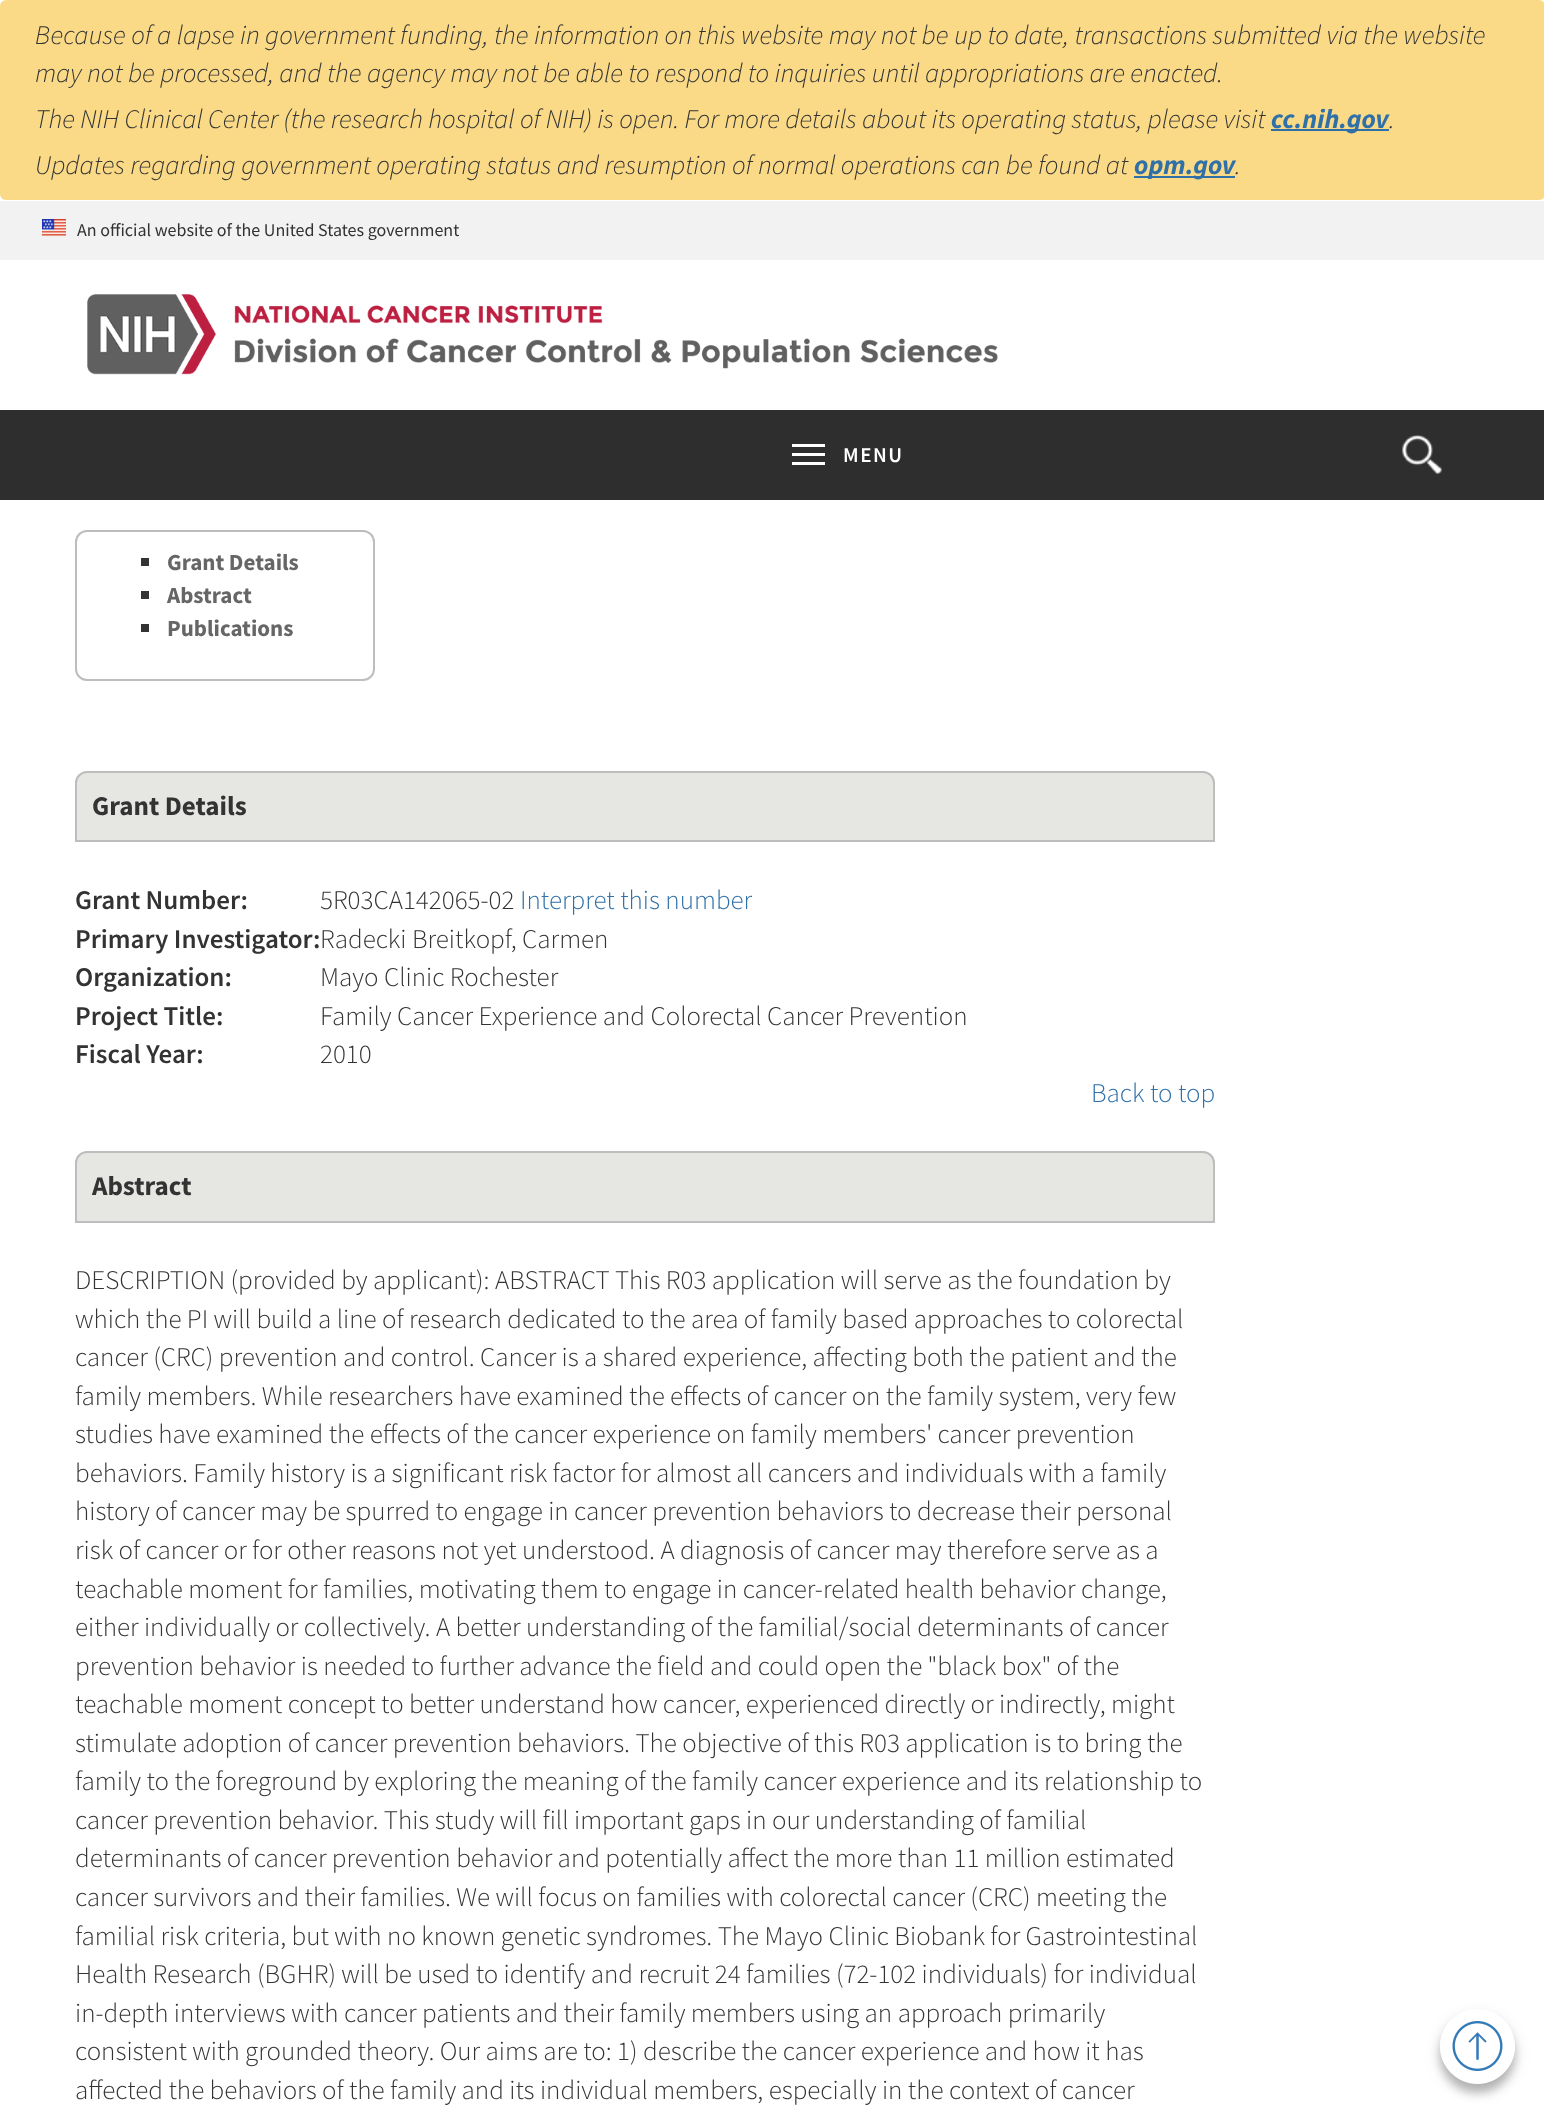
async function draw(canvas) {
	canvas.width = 1544;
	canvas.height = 2113;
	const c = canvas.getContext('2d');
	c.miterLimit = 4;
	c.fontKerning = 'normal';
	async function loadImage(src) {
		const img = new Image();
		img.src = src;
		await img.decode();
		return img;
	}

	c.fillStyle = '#fff';
	c.fillRect(0, 0, 1544, 2113);
	c.fillStyle = '#fada87';
	c.beginPath();
	c.roundRect(0, 0, 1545, 200, 6);
	c.fill();
	c.font = 'italic 300 27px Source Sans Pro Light';
	c.fillStyle = '#333';
	for (const [text, x, y] of [
		['Because of a lapse in government funding, the information on this website may not be up to date, transactions submitted via the website', 35, 44],
		['may not be processed, and the agency may not be able to respond to inquiries until appropriations are enacted.', 35, 82],
		['The NIH Clinical Center (the research hospital of NIH) is open. For more details about its operating status, please visit', 35, 128],
	]) {
		c.fillText(text, x, y);
	}
	c.fillStyle = '#2f70a8';
	c.fillRect(1271, 129, 118, 2);
	c.font = 'italic bold 27px Source Sans Pro';
	c.fillText('cc.nih.gov', 1271, 128);
	c.font = 'italic 300 27px Source Sans Pro Light';
	c.fillStyle = '#333';
	c.fillText('.', 1389, 128);
	c.fillText('Updates regarding government operating status and resumption of normal operations can be found at', 35, 174);
	c.fillStyle = '#2f70a8';
	c.fillRect(1134, 176, 101, 2);
	c.font = 'italic bold 27px Source Sans Pro';
	c.fillText('opm.gov', 1134, 174);
	c.font = 'italic 300 27px Source Sans Pro Light';
	c.fillStyle = '#333';
	c.fillText('.', 1235, 174);
	c.fillStyle = '#f2f2f2';
	c.fillRect(0, 201, 1544, 59);
	c.drawImage(await loadImage('img1.png'), 42, 219, 24, 17);
	c.font = '18px Source Sans Pro';
	c.fillStyle = '#333';
	c.fillText('An official website of the United States government', 77, 236);
	c.drawImage(await loadImage('img2.png'), 87, 294, 911, 81);
	c.fillStyle = '#2e2e2e';
	c.fillRect(0, 410, 1544, 90);
	c.drawImage(await loadImage('img3.png'), 1402, 435, 40, 39);
	c.fillStyle = '#fff';
	c.fillRect(792, 444, 33, 3);
	c.fillRect(792, 453, 33, 3);
	c.letterSpacing = '1.5px';
	c.font = '600 21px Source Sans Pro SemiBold';
	c.fillText('MENU', 843, 462);
	c.fillRect(792, 462, 33, 3);
	c.beginPath();
	c.roundRect(76, 531, 298, 149, 11);
	c.strokeStyle = '#bdbdbd';
	c.lineWidth = 2;
	c.stroke();
	c.fillStyle = '#333';
	c.fillRect(141, 558, 8, 8);
	c.letterSpacing = '0px';
	c.font = 'bold 23px Source Sans Pro';
	c.fillStyle = '#666';
	c.fillText('Grant Details', 167, 570);
	c.fillStyle = '#333';
	c.fillRect(141, 591, 8, 8);
	c.fillStyle = '#666';
	c.fillText('Abstract', 167, 603);
	c.fillStyle = '#333';
	c.fillRect(141, 624, 8, 8);
	c.fillStyle = '#666';
	c.fillText('Publications', 167, 636);
	c.fillStyle = '#e6e6e2';
	c.beginPath();
	c.roundRect(76, 772, 1138, 69, [11, 11, 0, 0]);
	c.fill();
	c.stroke();
	c.font = 'bold 27px Source Sans Pro';
	c.fillStyle = '#333';
	c.fillText('Grant Details', 92, 815);
	c.font = '600 27px Source Sans Pro SemiBold';
	c.fillText('Grant Number:', 75, 909);
	c.font = '300 27px Source Sans Pro Light';
	c.fillText('5R03CA142065-02', 320, 909);
	c.fillStyle = '#2f70a8';
	c.fillText('Interpret this number', 520, 909);
	c.font = '600 27px Source Sans Pro SemiBold';
	c.fillStyle = '#333';
	c.fillText('Primary Investigator:', 75, 948);
	c.font = '300 27px Source Sans Pro Light';
	c.fillText('Radecki Breitkopf, Carmen', 320, 948);
	c.font = '600 27px Source Sans Pro SemiBold';
	c.fillText('Organization:', 75, 986);
	c.font = '300 27px Source Sans Pro Light';
	c.fillText('Mayo Clinic Rochester', 320, 986);
	c.font = '600 27px Source Sans Pro SemiBold';
	c.fillText('Project Title:', 75, 1025);
	c.font = '300 27px Source Sans Pro Light';
	c.fillText('Family Cancer Experience and Colorectal Cancer Prevention', 320, 1025);
	c.font = '600 27px Source Sans Pro SemiBold';
	c.fillText('Fiscal Year:', 75, 1063);
	c.font = '300 27px Source Sans Pro Light';
	c.fillText('2010', 320, 1063);
	c.fillStyle = '#2f70a8';
	c.fillText('Back to top', 1091, 1102);
	c.fillStyle = '#e6e6e2';
	c.beginPath();
	c.roundRect(76, 1152, 1138, 70, [11, 11, 0, 0]);
	c.fill();
	c.stroke();
	c.font = 'bold 27px Source Sans Pro';
	c.fillStyle = '#333';
	c.fillText('Abstract', 92, 1195);
	c.font = '300 27px Source Sans Pro Light';
	for (const [text, x, y] of [
		['DESCRIPTION (provided by applicant): ABSTRACT This R03 application will serve as the foundation by', 75, 1289],
		['which the PI will build a line of research dedicated to the area of family based approaches to colorectal', 75, 1328],
		['cancer (CRC) prevention and control. Cancer is a shared experience, affecting both the patient and the', 75, 1366],
		['family members. While researchers have examined the effects of cancer on the family system, very few', 75, 1405],
		['studies have examined the effects of the cancer experience on family members\' cancer prevention', 75, 1443],
		['behaviors. Family history is a significant risk factor for almost all cancers and individuals with a family', 75, 1482],
		['history of cancer may be spurred to engage in cancer prevention behaviors to decrease their personal', 75, 1520],
		['risk of cancer or for other reasons not yet understood. A diagnosis of cancer may therefore serve as a', 75, 1559],
		['teachable moment for families, motivating them to engage in cancer-related health behavior change,', 75, 1598],
		['either individually or collectively. A better understanding of the familial/social determinants of cancer', 75, 1636],
		['prevention behavior is needed to further advance the field and could open the "black box" of the', 75, 1675],
		['teachable moment concept to better understand how cancer, experienced directly or indirectly, might', 75, 1713],
		['stimulate adoption of cancer prevention behaviors. The objective of this R03 application is to bring the', 75, 1752],
		['family to the foreground by exploring the meaning of the family cancer experience and its relationship to', 75, 1790],
		['cancer prevention behavior. This study will fill important gaps in our understanding of familial', 75, 1829],
		['determinants of cancer prevention behavior and potentially affect the more than 11 million estimated', 75, 1867],
		['cancer survivors and their families. We will focus on families with colorectal cancer (CRC) meeting the', 75, 1906],
		['familial risk criteria, but with no known genetic syndromes. The Mayo Clinic Biobank for Gastrointestinal', 75, 1945],
		['Health Research (BGHR) will be used to identify and recruit 24 families (72-102 individuals) for individual', 75, 1983],
		['in-depth interviews with cancer patients and their family members using an approach primarily', 75, 2022],
		['consistent with grounded theory. Our aims are to: 1) describe the cancer experience and how it has', 75, 2060],
		['affected the behaviors of the family and its individual members, especially in the context of cancer', 75, 2099],
	]) {
		c.fillText(text, x, y);
	}
	c.save();
	c.beginPath();
	c.moveTo(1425, 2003);
	c.lineTo(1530, 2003);
	c.lineTo(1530, 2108);
	c.lineTo(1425, 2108);
	c.closePath();
	c.moveTo(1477.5, 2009);
	c.bezierCurveTo(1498, 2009, 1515, 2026, 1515, 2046.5);
	c.bezierCurveTo(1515, 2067, 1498, 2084, 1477.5, 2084);
	c.bezierCurveTo(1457, 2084, 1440, 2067, 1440, 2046.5);
	c.bezierCurveTo(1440, 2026, 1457, 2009, 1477.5, 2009);
	c.closePath();
	c.clip('evenodd');
	c.fillStyle = '#00000033';
	c.filter = 'blur(4.5px)';
	c.beginPath();
	c.roundRect(1440, 2018, 75, 75, 37.5);
	c.fill();
	c.filter = 'none';
	c.restore();
	c.save();
	c.beginPath();
	c.moveTo(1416, 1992);
	c.lineTo(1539, 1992);
	c.lineTo(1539, 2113);
	c.lineTo(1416, 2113);
	c.closePath();
	c.moveTo(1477.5, 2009);
	c.bezierCurveTo(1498, 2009, 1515, 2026, 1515, 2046.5);
	c.bezierCurveTo(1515, 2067, 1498, 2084, 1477.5, 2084);
	c.bezierCurveTo(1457, 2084, 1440, 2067, 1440, 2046.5);
	c.bezierCurveTo(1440, 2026, 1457, 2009, 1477.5, 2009);
	c.closePath();
	c.clip('evenodd');
	c.fillStyle = '#00000026';
	c.filter = 'blur(7.5px)';
	c.beginPath();
	c.roundRect(1440, 2016, 75, 75, 37.5);
	c.fill();
	c.filter = 'none';
	c.restore();
	c.drawImage(await loadImage('img4.png'), 1440, 2021, 75, 63);
}

draw(document.querySelector('canvas'));
